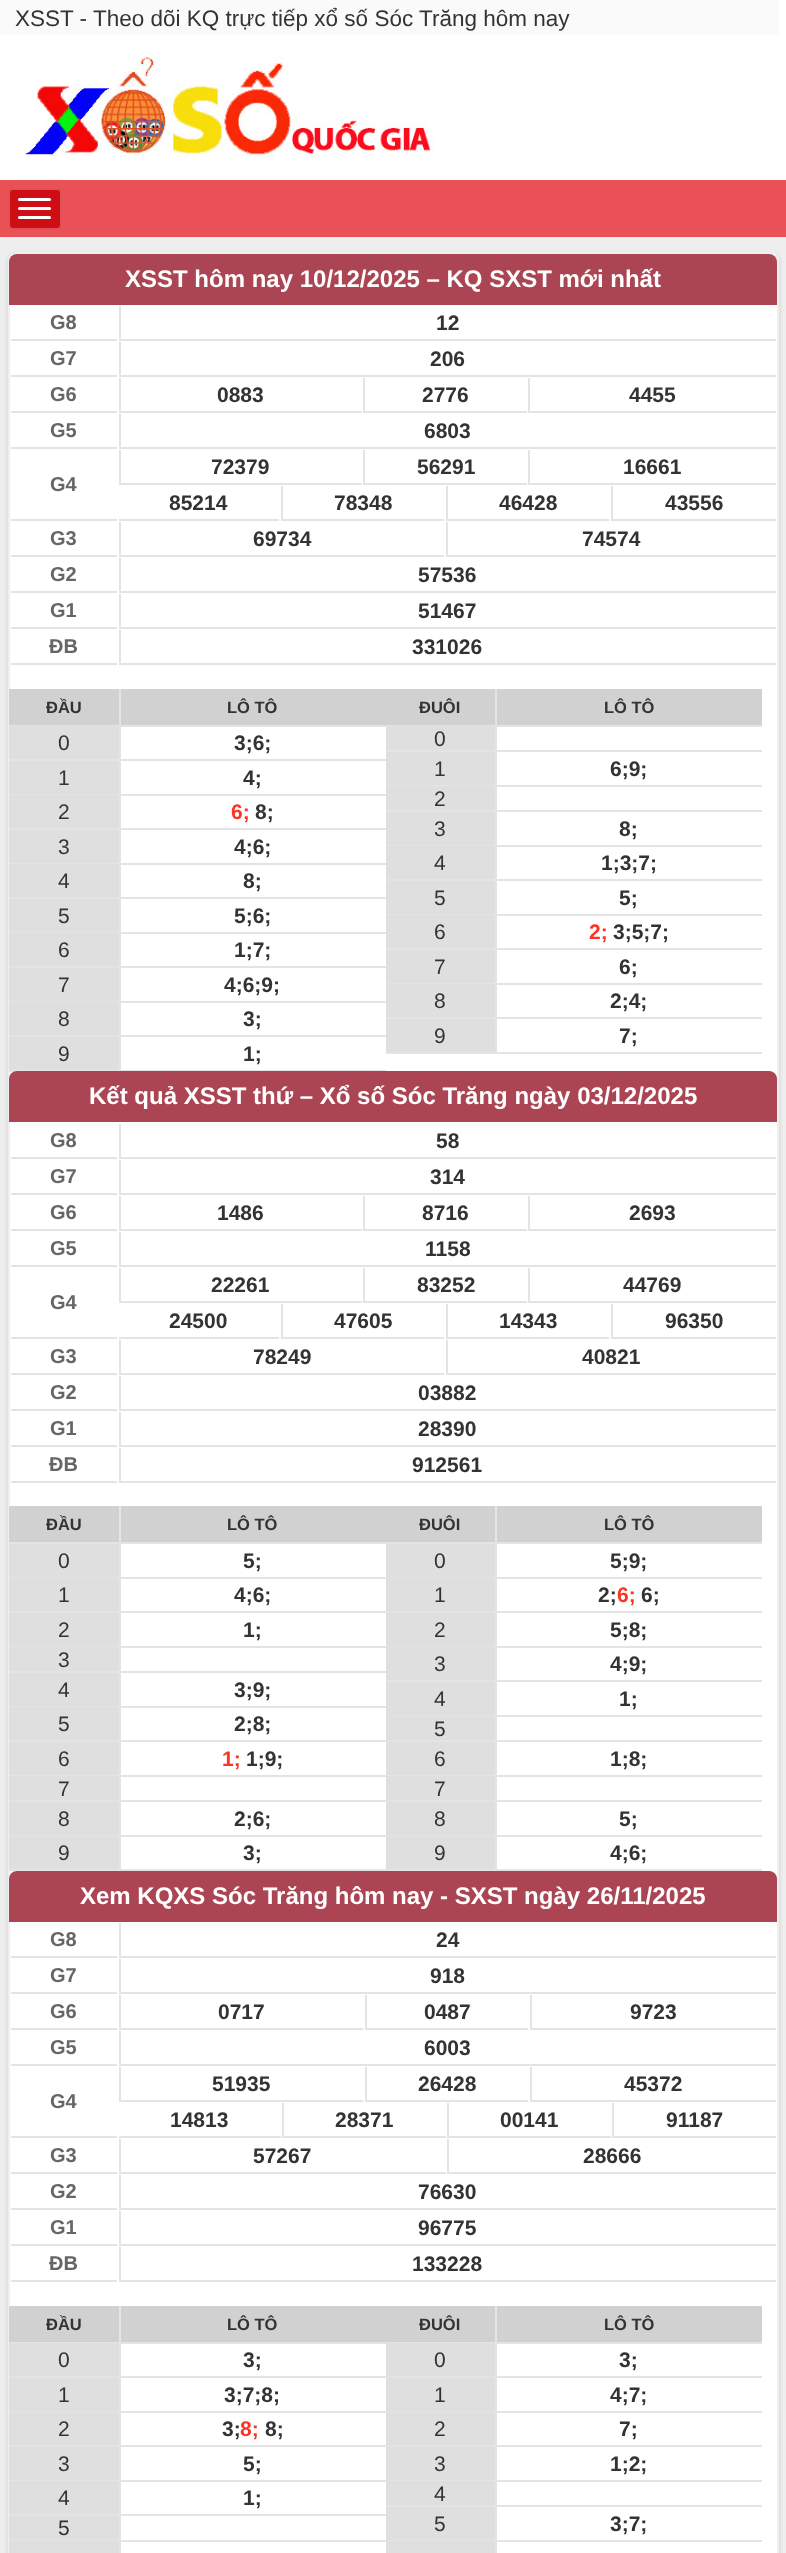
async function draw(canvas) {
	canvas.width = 786;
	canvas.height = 2553;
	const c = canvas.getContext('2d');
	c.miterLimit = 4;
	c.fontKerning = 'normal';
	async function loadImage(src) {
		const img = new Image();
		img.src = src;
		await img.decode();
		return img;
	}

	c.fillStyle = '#eee';
	c.fillRect(0, 0, 786, 2553);
	c.fillStyle = '#fff';
	c.fillRect(0, 0, 786, 180);
	c.fillStyle = '#fafafa';
	c.fillRect(0, 0, 779, 35);
	c.font = '22.5px Liberation Sans';
	c.fillStyle = '#333';
	c.fillText('XSST - Theo dõi KQ trực tiếp xổ số Sóc Trăng hôm nay', 15, 26);
	c.drawImage(await loadImage('img1.png'), 22, 56, 412, 102);
	c.fillStyle = '#ea5157';
	c.fillRect(0, 180, 786, 57);
	c.fillStyle = '#ce0d14';
	c.beginPath();
	c.roundRect(9, 189, 52, 40, 4);
	c.fill();
	c.strokeStyle = '#e15057';
	c.lineWidth = 2;
	c.stroke();
	c.fillStyle = '#fff';
	c.beginPath();
	c.roundRect(18, 198, 33, 3, 1.5);
	c.fill();
	c.beginPath();
	c.roundRect(18, 207, 33, 3, 1.5);
	c.fill();
	c.beginPath();
	c.roundRect(18, 216, 33, 3, 1.5);
	c.fill();
	c.fillStyle = '#ccc';
	c.filter = 'blur(2px)';
	c.beginPath();
	c.roundRect(8, 254, 771, 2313, 8);
	c.fill();
	c.filter = 'none';
	c.fillStyle = '#fff';
	c.beginPath();
	c.roundRect(9, 253, 769, 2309, 7);
	c.fill();
	c.strokeStyle = '#efefef';
	c.stroke();
	c.fillStyle = '#ab4553';
	c.beginPath();
	c.roundRect(9, 254, 768, 51, [8, 8, 0, 0]);
	c.fill();
	c.font = 'bold 24px Liberation Sans';
	c.fillStyle = '#fff';
	c.fillText('XSST hôm nay 10/12/2025 – KQ SXST mới nhất', 125, 287);
	c.fillStyle = '#e4e4e4';
	c.fillRect(11, 339, 106, 2);
	c.font = 'bold 20px Liberation Sans';
	c.fillStyle = '#666';
	c.fillText('G8', 50, 329);
	c.fillStyle = '#e4e4e4';
	c.fillRect(119, 339, 657, 2);
	c.fillRect(119, 306, 2, 35);
	c.font = 'bold 21px Liberation Sans';
	c.fillStyle = '#333';
	c.fillText('12', 436, 330);
	c.fillStyle = '#e4e4e4';
	c.fillRect(11, 375, 106, 2);
	c.font = 'bold 20px Liberation Sans';
	c.fillStyle = '#666';
	c.fillText('G7', 50, 365);
	c.fillStyle = '#e4e4e4';
	c.fillRect(119, 375, 657, 2);
	c.fillRect(119, 342, 2, 35);
	c.font = 'bold 21px Liberation Sans';
	c.fillStyle = '#333';
	c.fillText('206', 430, 366);
	c.fillStyle = '#e4e4e4';
	c.fillRect(11, 411, 106, 2);
	c.font = 'bold 20px Liberation Sans';
	c.fillStyle = '#666';
	c.fillText('G6', 50, 401);
	c.fillStyle = '#e4e4e4';
	c.fillRect(119, 411, 243, 2);
	c.fillRect(119, 378, 2, 35);
	c.font = 'bold 21px Liberation Sans';
	c.fillStyle = '#333';
	c.fillText('0883', 217, 402);
	c.fillStyle = '#e4e4e4';
	c.fillRect(363, 411, 164, 2);
	c.fillRect(363, 378, 2, 35);
	c.fillStyle = '#333';
	c.fillText('2776', 422, 402);
	c.fillStyle = '#e4e4e4';
	c.fillRect(528, 411, 248, 2);
	c.fillRect(528, 378, 2, 35);
	c.fillStyle = '#333';
	c.fillText('4455', 629, 402);
	c.fillStyle = '#e4e4e4';
	c.fillRect(11, 447, 106, 2);
	c.font = 'bold 20px Liberation Sans';
	c.fillStyle = '#666';
	c.fillText('G5', 50, 437);
	c.fillStyle = '#e4e4e4';
	c.fillRect(119, 447, 657, 2);
	c.fillRect(119, 414, 2, 35);
	c.font = 'bold 21px Liberation Sans';
	c.fillStyle = '#333';
	c.fillText('6803', 424, 438);
	c.fillStyle = '#e4e4e4';
	c.fillRect(119, 483, 243, 2);
	c.fillRect(119, 450, 2, 35);
	c.fillStyle = '#333';
	c.fillText('72379', 211, 474);
	c.fillStyle = '#e4e4e4';
	c.fillRect(363, 483, 164, 2);
	c.fillRect(363, 450, 2, 35);
	c.fillStyle = '#333';
	c.fillText('56291', 417, 474);
	c.fillStyle = '#e4e4e4';
	c.fillRect(528, 483, 248, 2);
	c.fillRect(528, 450, 2, 35);
	c.fillStyle = '#333';
	c.fillText('16661', 623, 474);
	c.fillStyle = '#e4e4e4';
	c.fillRect(11, 519, 106, 2);
	c.font = 'bold 20px Liberation Sans';
	c.fillStyle = '#666';
	c.fillText('G4', 50, 491);
	c.fillStyle = '#e4e4e4';
	c.fillRect(119, 519, 160, 2);
	c.font = 'bold 21px Liberation Sans';
	c.fillStyle = '#333';
	c.fillText('85214', 169, 510);
	c.fillStyle = '#e4e4e4';
	c.fillRect(281, 519, 163, 2);
	c.fillRect(281, 486, 2, 35);
	c.fillStyle = '#333';
	c.fillText('78348', 334, 510);
	c.fillStyle = '#e4e4e4';
	c.fillRect(446, 519, 163, 2);
	c.fillRect(446, 486, 2, 35);
	c.fillStyle = '#333';
	c.fillText('46428', 499, 510);
	c.fillStyle = '#e4e4e4';
	c.fillRect(611, 519, 165, 2);
	c.fillRect(611, 486, 2, 35);
	c.fillStyle = '#333';
	c.fillText('43556', 665, 510);
	c.fillStyle = '#e4e4e4';
	c.fillRect(11, 555, 106, 2);
	c.font = 'bold 20px Liberation Sans';
	c.fillStyle = '#666';
	c.fillText('G3', 50, 545);
	c.fillStyle = '#e4e4e4';
	c.fillRect(119, 555, 325, 2);
	c.fillRect(119, 522, 2, 35);
	c.font = 'bold 21px Liberation Sans';
	c.fillStyle = '#333';
	c.fillText('69734', 253, 546);
	c.fillStyle = '#e4e4e4';
	c.fillRect(446, 555, 330, 2);
	c.fillRect(446, 522, 2, 35);
	c.fillStyle = '#333';
	c.fillText('74574', 582, 546);
	c.fillStyle = '#e4e4e4';
	c.fillRect(11, 591, 106, 2);
	c.font = 'bold 20px Liberation Sans';
	c.fillStyle = '#666';
	c.fillText('G2', 50, 581);
	c.fillStyle = '#e4e4e4';
	c.fillRect(119, 591, 657, 2);
	c.fillRect(119, 558, 2, 35);
	c.font = 'bold 21px Liberation Sans';
	c.fillStyle = '#333';
	c.fillText('57536', 418, 582);
	c.fillStyle = '#e4e4e4';
	c.fillRect(11, 627, 106, 2);
	c.font = 'bold 20px Liberation Sans';
	c.fillStyle = '#666';
	c.fillText('G1', 50, 617);
	c.fillStyle = '#e4e4e4';
	c.fillRect(119, 627, 657, 2);
	c.fillRect(119, 594, 2, 35);
	c.font = 'bold 21px Liberation Sans';
	c.fillStyle = '#333';
	c.fillText('51467', 418, 618);
	c.fillStyle = '#e4e4e4';
	c.fillRect(11, 663, 106, 2);
	c.font = 'bold 20px Liberation Sans';
	c.fillStyle = '#666';
	c.fillText('ĐB', 49, 653);
	c.fillStyle = '#e4e4e4';
	c.fillRect(119, 663, 657, 2);
	c.fillRect(119, 630, 2, 35);
	c.font = 'bold 21px Liberation Sans';
	c.fillStyle = '#333';
	c.fillText('331026', 412, 654);
	c.fillStyle = '#d1d1d1';
	c.fillRect(9, 689, 753, 36);
	c.fillStyle = '#e4e4e4';
	c.fillRect(9, 725, 110, 1);
	c.font = 'bold 16.5px Liberation Sans';
	c.fillStyle = '#333';
	c.fillText('ĐẦU', 46, 713);
	c.fillStyle = '#e4e4e4';
	c.fillRect(119, 725, 267, 2);
	c.fillRect(119, 689, 2, 37);
	c.fillStyle = '#333';
	c.fillText('LÔ TÔ', 227, 713);
	c.fillStyle = '#dfdfdf';
	c.fillRect(9, 726, 110, 33);
	c.fillStyle = '#e4e4e4';
	c.fillRect(9, 759, 377, 2);
	c.font = '21px Liberation Sans';
	c.fillStyle = '#333';
	c.fillText('0', 58, 750);
	c.fillStyle = '#e4e4e4';
	c.fillRect(119, 726, 2, 35);
	c.font = 'bold 21px Liberation Sans';
	c.fillStyle = '#333';
	c.fillText('3;6;', 234, 750);
	c.fillStyle = '#dfdfdf';
	c.fillRect(9, 761, 110, 33);
	c.fillStyle = '#e4e4e4';
	c.fillRect(9, 794, 110, 1);
	c.font = '21px Liberation Sans';
	c.fillStyle = '#333';
	c.fillText('1', 58, 785);
	c.fillStyle = '#e4e4e4';
	c.fillRect(119, 794, 267, 2);
	c.fillRect(119, 761, 2, 34);
	c.font = 'bold 21px Liberation Sans';
	c.fillStyle = '#333';
	c.fillText('4;', 243, 785);
	c.fillStyle = '#dfdfdf';
	c.fillRect(9, 795, 110, 33);
	c.fillStyle = '#e4e4e4';
	c.fillRect(9, 828, 377, 2);
	c.font = '21px Liberation Sans';
	c.fillStyle = '#333';
	c.fillText('2', 58, 819);
	c.fillStyle = '#e4e4e4';
	c.fillRect(119, 795, 2, 35);
	c.font = 'bold 21px Liberation Sans';
	c.fillStyle = '#f32';
	c.fillText('6;', 231, 819);
	c.fillStyle = '#333';
	c.fillText('8;', 255, 819);
	c.fillStyle = '#dfdfdf';
	c.fillRect(9, 830, 110, 33);
	c.fillStyle = '#e4e4e4';
	c.fillRect(9, 863, 110, 1);
	c.font = '21px Liberation Sans';
	c.fillStyle = '#333';
	c.fillText('3', 58, 854);
	c.fillStyle = '#e4e4e4';
	c.fillRect(119, 863, 267, 2);
	c.fillRect(119, 830, 2, 34);
	c.font = 'bold 21px Liberation Sans';
	c.fillStyle = '#333';
	c.fillText('4;6;', 234, 854);
	c.fillStyle = '#dfdfdf';
	c.fillRect(9, 864, 110, 33);
	c.fillStyle = '#e4e4e4';
	c.fillRect(9, 897, 377, 2);
	c.font = '21px Liberation Sans';
	c.fillStyle = '#333';
	c.fillText('4', 58, 888);
	c.fillStyle = '#e4e4e4';
	c.fillRect(119, 864, 2, 35);
	c.font = 'bold 21px Liberation Sans';
	c.fillStyle = '#333';
	c.fillText('8;', 243, 888);
	c.fillStyle = '#dfdfdf';
	c.fillRect(9, 899, 110, 33);
	c.fillStyle = '#e4e4e4';
	c.fillRect(9, 932, 110, 1);
	c.font = '21px Liberation Sans';
	c.fillStyle = '#333';
	c.fillText('5', 58, 923);
	c.fillStyle = '#e4e4e4';
	c.fillRect(119, 932, 267, 2);
	c.fillRect(119, 899, 2, 34);
	c.font = 'bold 21px Liberation Sans';
	c.fillStyle = '#333';
	c.fillText('5;6;', 234, 923);
	c.fillStyle = '#dfdfdf';
	c.fillRect(9, 933, 110, 33);
	c.fillStyle = '#e4e4e4';
	c.fillRect(9, 966, 377, 2);
	c.font = '21px Liberation Sans';
	c.fillStyle = '#333';
	c.fillText('6', 58, 957);
	c.fillStyle = '#e4e4e4';
	c.fillRect(119, 933, 2, 35);
	c.font = 'bold 21px Liberation Sans';
	c.fillStyle = '#333';
	c.fillText('1;7;', 234, 957);
	c.fillStyle = '#dfdfdf';
	c.fillRect(9, 968, 110, 33);
	c.fillStyle = '#e4e4e4';
	c.fillRect(9, 1001, 110, 1);
	c.font = '21px Liberation Sans';
	c.fillStyle = '#333';
	c.fillText('7', 58, 992);
	c.fillStyle = '#e4e4e4';
	c.fillRect(119, 1001, 267, 2);
	c.fillRect(119, 968, 2, 34);
	c.font = 'bold 21px Liberation Sans';
	c.fillStyle = '#333';
	c.fillText('4;6;9;', 224, 992);
	c.fillStyle = '#dfdfdf';
	c.fillRect(9, 1002, 110, 33);
	c.fillStyle = '#e4e4e4';
	c.fillRect(9, 1035, 377, 2);
	c.font = '21px Liberation Sans';
	c.fillStyle = '#333';
	c.fillText('8', 58, 1026);
	c.fillStyle = '#e4e4e4';
	c.fillRect(119, 1002, 2, 35);
	c.font = 'bold 21px Liberation Sans';
	c.fillStyle = '#333';
	c.fillText('3;', 243, 1026);
	c.fillStyle = '#dfdfdf';
	c.fillRect(9, 1037, 110, 33);
	c.fillStyle = '#e4e4e4';
	c.fillRect(9, 1070, 110, 2);
	c.font = '21px Liberation Sans';
	c.fillStyle = '#333';
	c.fillText('9', 58, 1061);
	c.fillStyle = '#e4e4e4';
	c.fillRect(119, 1070, 267, 1);
	c.fillRect(119, 1037, 2, 34);
	c.font = 'bold 21px Liberation Sans';
	c.fillStyle = '#333';
	c.fillText('1;', 243, 1061);
	c.fillStyle = '#e4e4e4';
	c.fillRect(386, 725, 109, 1);
	c.font = 'bold 16.5px Liberation Sans';
	c.fillStyle = '#333';
	c.fillText('ĐUÔI', 419, 713);
	c.fillStyle = '#e4e4e4';
	c.fillRect(495, 725, 267, 2);
	c.fillRect(495, 689, 2, 37);
	c.fillStyle = '#333';
	c.fillText('LÔ TÔ', 604, 713);
	c.fillStyle = '#dfdfdf';
	c.fillRect(386, 726, 109, 24);
	c.fillStyle = '#e4e4e4';
	c.fillRect(386, 750, 376, 2);
	c.font = '21px Liberation Sans';
	c.fillStyle = '#333';
	c.fillText('0', 434, 746);
	for (const [x, y, w, h, color] of [
		[495, 726, 2, 26, '#e4e4e4'],
		[386, 752, 109, 33, '#dfdfdf'],
		[386, 785, 109, 1, '#e4e4e4'],
	]) {
		c.fillStyle = color;
		c.fillRect(x, y, w, h);
	}
	c.fillStyle = '#333';
	c.fillText('1', 434, 776);
	c.fillStyle = '#e4e4e4';
	c.fillRect(495, 785, 267, 2);
	c.fillRect(495, 752, 2, 34);
	c.font = 'bold 21px Liberation Sans';
	c.fillStyle = '#333';
	c.fillText('6;9;', 610, 776);
	c.fillStyle = '#dfdfdf';
	c.fillRect(386, 786, 109, 24);
	c.fillStyle = '#e4e4e4';
	c.fillRect(386, 810, 376, 2);
	c.font = '21px Liberation Sans';
	c.fillStyle = '#333';
	c.fillText('2', 434, 806);
	for (const [x, y, w, h, color] of [
		[495, 786, 2, 26, '#e4e4e4'],
		[386, 812, 109, 33, '#dfdfdf'],
		[386, 845, 109, 1, '#e4e4e4'],
	]) {
		c.fillStyle = color;
		c.fillRect(x, y, w, h);
	}
	c.fillStyle = '#333';
	c.fillText('3', 434, 836);
	c.fillStyle = '#e4e4e4';
	c.fillRect(495, 845, 267, 2);
	c.fillRect(495, 812, 2, 34);
	c.font = 'bold 21px Liberation Sans';
	c.fillStyle = '#333';
	c.fillText('8;', 619, 836);
	c.fillStyle = '#dfdfdf';
	c.fillRect(386, 846, 109, 33);
	c.fillStyle = '#e4e4e4';
	c.fillRect(386, 879, 376, 2);
	c.font = '21px Liberation Sans';
	c.fillStyle = '#333';
	c.fillText('4', 434, 870);
	c.fillStyle = '#e4e4e4';
	c.fillRect(495, 846, 2, 35);
	c.font = 'bold 21px Liberation Sans';
	c.fillStyle = '#333';
	c.fillText('1;3;7;', 601, 870);
	c.fillStyle = '#dfdfdf';
	c.fillRect(386, 881, 109, 33);
	c.fillStyle = '#e4e4e4';
	c.fillRect(386, 914, 109, 1);
	c.font = '21px Liberation Sans';
	c.fillStyle = '#333';
	c.fillText('5', 434, 905);
	c.fillStyle = '#e4e4e4';
	c.fillRect(495, 914, 267, 2);
	c.fillRect(495, 881, 2, 34);
	c.font = 'bold 21px Liberation Sans';
	c.fillStyle = '#333';
	c.fillText('5;', 619, 905);
	c.fillStyle = '#dfdfdf';
	c.fillRect(386, 915, 109, 33);
	c.fillStyle = '#e4e4e4';
	c.fillRect(386, 948, 376, 2);
	c.font = '21px Liberation Sans';
	c.fillStyle = '#333';
	c.fillText('6', 434, 939);
	c.fillStyle = '#e4e4e4';
	c.fillRect(495, 915, 2, 35);
	c.font = 'bold 21px Liberation Sans';
	c.fillStyle = '#f32';
	c.fillText('2;', 589, 939);
	c.fillStyle = '#333';
	c.fillText('3;5;7;', 613, 939);
	c.fillStyle = '#dfdfdf';
	c.fillRect(386, 950, 109, 33);
	c.fillStyle = '#e4e4e4';
	c.fillRect(386, 983, 109, 1);
	c.font = '21px Liberation Sans';
	c.fillStyle = '#333';
	c.fillText('7', 434, 974);
	c.fillStyle = '#e4e4e4';
	c.fillRect(495, 983, 267, 2);
	c.fillRect(495, 950, 2, 34);
	c.font = 'bold 21px Liberation Sans';
	c.fillStyle = '#333';
	c.fillText('6;', 619, 974);
	c.fillStyle = '#dfdfdf';
	c.fillRect(386, 984, 109, 33);
	c.fillStyle = '#e4e4e4';
	c.fillRect(386, 1017, 376, 2);
	c.font = '21px Liberation Sans';
	c.fillStyle = '#333';
	c.fillText('8', 434, 1008);
	c.fillStyle = '#e4e4e4';
	c.fillRect(495, 984, 2, 35);
	c.font = 'bold 21px Liberation Sans';
	c.fillStyle = '#333';
	c.fillText('2;4;', 610, 1008);
	c.fillStyle = '#dfdfdf';
	c.fillRect(386, 1019, 109, 33);
	c.fillStyle = '#e4e4e4';
	c.fillRect(386, 1052, 376, 2);
	c.font = '21px Liberation Sans';
	c.fillStyle = '#333';
	c.fillText('9', 434, 1043);
	c.fillStyle = '#e4e4e4';
	c.fillRect(495, 1019, 2, 34);
	c.font = 'bold 21px Liberation Sans';
	c.fillStyle = '#333';
	c.fillText('7;', 619, 1043);
	c.fillStyle = '#ab4553';
	c.beginPath();
	c.roundRect(9, 1071, 768, 51, [8, 8, 0, 0]);
	c.fill();
	c.font = 'bold 24px Liberation Sans';
	c.fillStyle = '#fff';
	c.fillText('Kết quả XSST thứ – Xổ số Sóc Trăng ngày 03/12/2025', 89, 1104);
	c.fillStyle = '#e4e4e4';
	c.fillRect(11, 1157, 106, 2);
	c.font = 'bold 20px Liberation Sans';
	c.fillStyle = '#666';
	c.fillText('G8', 50, 1147);
	c.fillStyle = '#e4e4e4';
	c.fillRect(119, 1157, 657, 2);
	c.fillRect(119, 1124, 2, 34);
	c.font = 'bold 21px Liberation Sans';
	c.fillStyle = '#333';
	c.fillText('58', 436, 1148);
	c.fillStyle = '#e4e4e4';
	c.fillRect(11, 1193, 106, 2);
	c.font = 'bold 20px Liberation Sans';
	c.fillStyle = '#666';
	c.fillText('G7', 50, 1183);
	c.fillStyle = '#e4e4e4';
	c.fillRect(119, 1193, 657, 2);
	c.fillRect(119, 1160, 2, 34);
	c.font = 'bold 21px Liberation Sans';
	c.fillStyle = '#333';
	c.fillText('314', 430, 1184);
	c.fillStyle = '#e4e4e4';
	c.fillRect(11, 1229, 106, 2);
	c.font = 'bold 20px Liberation Sans';
	c.fillStyle = '#666';
	c.fillText('G6', 50, 1219);
	c.fillStyle = '#e4e4e4';
	c.fillRect(119, 1229, 243, 2);
	c.fillRect(119, 1196, 2, 34);
	c.font = 'bold 21px Liberation Sans';
	c.fillStyle = '#333';
	c.fillText('1486', 217, 1220);
	c.fillStyle = '#e4e4e4';
	c.fillRect(363, 1229, 164, 2);
	c.fillRect(363, 1196, 2, 34);
	c.fillStyle = '#333';
	c.fillText('8716', 422, 1220);
	c.fillStyle = '#e4e4e4';
	c.fillRect(528, 1229, 248, 2);
	c.fillRect(528, 1196, 2, 34);
	c.fillStyle = '#333';
	c.fillText('2693', 629, 1220);
	c.fillStyle = '#e4e4e4';
	c.fillRect(11, 1265, 106, 2);
	c.font = 'bold 20px Liberation Sans';
	c.fillStyle = '#666';
	c.fillText('G5', 50, 1255);
	c.fillStyle = '#e4e4e4';
	c.fillRect(119, 1265, 657, 2);
	c.fillRect(119, 1232, 2, 34);
	c.font = 'bold 21px Liberation Sans';
	c.fillStyle = '#333';
	c.fillText('1158', 425, 1256);
	c.fillStyle = '#e4e4e4';
	c.fillRect(119, 1301, 243, 2);
	c.fillRect(119, 1268, 2, 34);
	c.fillStyle = '#333';
	c.fillText('22261', 211, 1292);
	c.fillStyle = '#e4e4e4';
	c.fillRect(363, 1301, 164, 2);
	c.fillRect(363, 1268, 2, 34);
	c.fillStyle = '#333';
	c.fillText('83252', 417, 1292);
	c.fillStyle = '#e4e4e4';
	c.fillRect(528, 1301, 248, 2);
	c.fillRect(528, 1268, 2, 34);
	c.fillStyle = '#333';
	c.fillText('44769', 623, 1292);
	c.fillStyle = '#e4e4e4';
	c.fillRect(11, 1337, 106, 2);
	c.font = 'bold 20px Liberation Sans';
	c.fillStyle = '#666';
	c.fillText('G4', 50, 1309);
	c.fillStyle = '#e4e4e4';
	c.fillRect(119, 1337, 160, 2);
	c.font = 'bold 21px Liberation Sans';
	c.fillStyle = '#333';
	c.fillText('24500', 169, 1328);
	c.fillStyle = '#e4e4e4';
	c.fillRect(281, 1337, 163, 2);
	c.fillRect(281, 1304, 2, 34);
	c.fillStyle = '#333';
	c.fillText('47605', 334, 1328);
	c.fillStyle = '#e4e4e4';
	c.fillRect(446, 1337, 163, 2);
	c.fillRect(446, 1304, 2, 34);
	c.fillStyle = '#333';
	c.fillText('14343', 499, 1328);
	c.fillStyle = '#e4e4e4';
	c.fillRect(611, 1337, 165, 2);
	c.fillRect(611, 1304, 2, 34);
	c.fillStyle = '#333';
	c.fillText('96350', 665, 1328);
	c.fillStyle = '#e4e4e4';
	c.fillRect(11, 1373, 106, 2);
	c.font = 'bold 20px Liberation Sans';
	c.fillStyle = '#666';
	c.fillText('G3', 50, 1363);
	c.fillStyle = '#e4e4e4';
	c.fillRect(119, 1373, 325, 2);
	c.fillRect(119, 1340, 2, 34);
	c.font = 'bold 21px Liberation Sans';
	c.fillStyle = '#333';
	c.fillText('78249', 253, 1364);
	c.fillStyle = '#e4e4e4';
	c.fillRect(446, 1373, 330, 2);
	c.fillRect(446, 1340, 2, 34);
	c.fillStyle = '#333';
	c.fillText('40821', 582, 1364);
	c.fillStyle = '#e4e4e4';
	c.fillRect(11, 1409, 106, 2);
	c.font = 'bold 20px Liberation Sans';
	c.fillStyle = '#666';
	c.fillText('G2', 50, 1399);
	c.fillStyle = '#e4e4e4';
	c.fillRect(119, 1409, 657, 2);
	c.fillRect(119, 1376, 2, 34);
	c.font = 'bold 21px Liberation Sans';
	c.fillStyle = '#333';
	c.fillText('03882', 418, 1400);
	c.fillStyle = '#e4e4e4';
	c.fillRect(11, 1445, 106, 2);
	c.font = 'bold 20px Liberation Sans';
	c.fillStyle = '#666';
	c.fillText('G1', 50, 1435);
	c.fillStyle = '#e4e4e4';
	c.fillRect(119, 1445, 657, 2);
	c.fillRect(119, 1412, 2, 34);
	c.font = 'bold 21px Liberation Sans';
	c.fillStyle = '#333';
	c.fillText('28390', 418, 1436);
	c.fillStyle = '#e4e4e4';
	c.fillRect(11, 1481, 106, 2);
	c.font = 'bold 20px Liberation Sans';
	c.fillStyle = '#666';
	c.fillText('ĐB', 49, 1471);
	c.fillStyle = '#e4e4e4';
	c.fillRect(119, 1481, 657, 2);
	c.fillRect(119, 1448, 2, 34);
	c.font = 'bold 21px Liberation Sans';
	c.fillStyle = '#333';
	c.fillText('912561', 412, 1472);
	c.fillStyle = '#d1d1d1';
	c.fillRect(9, 1506, 753, 36);
	c.fillStyle = '#e4e4e4';
	c.fillRect(9, 1542, 753, 2);
	c.font = 'bold 16.5px Liberation Sans';
	c.fillStyle = '#333';
	c.fillText('ĐẦU', 46, 1530);
	c.fillStyle = '#e4e4e4';
	c.fillRect(119, 1506, 2, 38);
	c.fillStyle = '#333';
	c.fillText('LÔ TÔ', 227, 1530);
	c.fillStyle = '#dfdfdf';
	c.fillRect(9, 1544, 110, 33);
	c.fillStyle = '#e4e4e4';
	c.fillRect(9, 1577, 110, 1);
	c.font = '21px Liberation Sans';
	c.fillStyle = '#333';
	c.fillText('0', 58, 1568);
	c.fillStyle = '#e4e4e4';
	c.fillRect(119, 1577, 267, 2);
	c.fillRect(119, 1544, 2, 34);
	c.font = 'bold 21px Liberation Sans';
	c.fillStyle = '#333';
	c.fillText('5;', 243, 1568);
	c.fillStyle = '#dfdfdf';
	c.fillRect(9, 1578, 110, 33);
	c.fillStyle = '#e4e4e4';
	c.fillRect(9, 1611, 753, 2);
	c.font = '21px Liberation Sans';
	c.fillStyle = '#333';
	c.fillText('1', 58, 1602);
	c.fillStyle = '#e4e4e4';
	c.fillRect(119, 1578, 2, 35);
	c.font = 'bold 21px Liberation Sans';
	c.fillStyle = '#333';
	c.fillText('4;6;', 234, 1602);
	c.fillStyle = '#dfdfdf';
	c.fillRect(9, 1613, 110, 33);
	c.fillStyle = '#e4e4e4';
	c.fillRect(9, 1646, 110, 1);
	c.font = '21px Liberation Sans';
	c.fillStyle = '#333';
	c.fillText('2', 58, 1637);
	c.fillStyle = '#e4e4e4';
	c.fillRect(119, 1646, 267, 2);
	c.fillRect(119, 1613, 2, 34);
	c.font = 'bold 21px Liberation Sans';
	c.fillStyle = '#333';
	c.fillText('1;', 243, 1637);
	c.fillStyle = '#dfdfdf';
	c.fillRect(9, 1647, 110, 24);
	c.fillStyle = '#e4e4e4';
	c.fillRect(9, 1671, 377, 2);
	c.font = '21px Liberation Sans';
	c.fillStyle = '#333';
	c.fillText('3', 58, 1667);
	for (const [x, y, w, h, color] of [
		[119, 1647, 2, 26, '#e4e4e4'],
		[9, 1673, 110, 33, '#dfdfdf'],
		[9, 1706, 110, 1, '#e4e4e4'],
	]) {
		c.fillStyle = color;
		c.fillRect(x, y, w, h);
	}
	c.fillStyle = '#333';
	c.fillText('4', 58, 1697);
	c.fillStyle = '#e4e4e4';
	c.fillRect(119, 1706, 267, 2);
	c.fillRect(119, 1673, 2, 34);
	c.font = 'bold 21px Liberation Sans';
	c.fillStyle = '#333';
	c.fillText('3;9;', 234, 1697);
	c.fillStyle = '#dfdfdf';
	c.fillRect(9, 1707, 110, 33);
	c.fillStyle = '#e4e4e4';
	c.fillRect(9, 1740, 753, 2);
	c.font = '21px Liberation Sans';
	c.fillStyle = '#333';
	c.fillText('5', 58, 1731);
	c.fillStyle = '#e4e4e4';
	c.fillRect(119, 1707, 2, 35);
	c.font = 'bold 21px Liberation Sans';
	c.fillStyle = '#333';
	c.fillText('2;8;', 234, 1731);
	c.fillStyle = '#dfdfdf';
	c.fillRect(9, 1742, 110, 33);
	c.fillStyle = '#e4e4e4';
	c.fillRect(9, 1775, 110, 1);
	c.font = '21px Liberation Sans';
	c.fillStyle = '#333';
	c.fillText('6', 58, 1766);
	c.fillStyle = '#e4e4e4';
	c.fillRect(119, 1775, 267, 2);
	c.fillRect(119, 1742, 2, 34);
	c.font = 'bold 21px Liberation Sans';
	c.fillStyle = '#f32';
	c.fillText('1;', 222, 1766);
	c.fillStyle = '#333';
	c.fillText('1;9;', 246, 1766);
	c.fillStyle = '#dfdfdf';
	c.fillRect(9, 1776, 110, 24);
	c.fillStyle = '#e4e4e4';
	c.fillRect(9, 1800, 753, 2);
	c.font = '21px Liberation Sans';
	c.fillStyle = '#333';
	c.fillText('7', 58, 1796);
	for (const [x, y, w, h, color] of [
		[119, 1776, 2, 26, '#e4e4e4'],
		[9, 1802, 110, 33, '#dfdfdf'],
		[9, 1835, 110, 1, '#e4e4e4'],
	]) {
		c.fillStyle = color;
		c.fillRect(x, y, w, h);
	}
	c.fillStyle = '#333';
	c.fillText('8', 58, 1826);
	c.fillStyle = '#e4e4e4';
	c.fillRect(119, 1835, 267, 2);
	c.fillRect(119, 1802, 2, 34);
	c.font = 'bold 21px Liberation Sans';
	c.fillStyle = '#333';
	c.fillText('2;6;', 234, 1826);
	c.fillStyle = '#dfdfdf';
	c.fillRect(9, 1836, 110, 33);
	c.fillStyle = '#e4e4e4';
	c.fillRect(9, 1869, 753, 2);
	c.font = '21px Liberation Sans';
	c.fillStyle = '#333';
	c.fillText('9', 58, 1860);
	c.fillStyle = '#e4e4e4';
	c.fillRect(119, 1836, 2, 35);
	c.font = 'bold 21px Liberation Sans';
	c.fillStyle = '#333';
	c.fillText('3;', 243, 1860);
	c.font = 'bold 16.5px Liberation Sans';
	c.fillText('ĐUÔI', 419, 1530);
	c.fillStyle = '#e4e4e4';
	c.fillRect(495, 1506, 2, 38);
	c.fillStyle = '#333';
	c.fillText('LÔ TÔ', 604, 1530);
	c.fillStyle = '#dfdfdf';
	c.fillRect(386, 1544, 109, 33);
	c.fillStyle = '#e4e4e4';
	c.fillRect(386, 1577, 109, 1);
	c.font = '21px Liberation Sans';
	c.fillStyle = '#333';
	c.fillText('0', 434, 1568);
	c.fillStyle = '#e4e4e4';
	c.fillRect(495, 1577, 267, 2);
	c.fillRect(495, 1544, 2, 69);
	c.font = 'bold 21px Liberation Sans';
	c.fillStyle = '#333';
	c.fillText('5;9;', 610, 1568);
	c.fillStyle = '#dfdfdf';
	c.fillRect(386, 1578, 109, 33);
	c.font = '21px Liberation Sans';
	c.fillStyle = '#333';
	c.fillText('1', 434, 1602);
	c.font = 'bold 21px Liberation Sans';
	c.fillText('2;', 598, 1602);
	c.fillStyle = '#f32';
	c.fillText('6;', 617, 1602);
	c.fillStyle = '#333';
	c.fillText('6;', 641, 1602);
	c.fillStyle = '#dfdfdf';
	c.fillRect(386, 1613, 109, 33);
	c.fillStyle = '#e4e4e4';
	c.fillRect(386, 1646, 109, 1);
	c.font = '21px Liberation Sans';
	c.fillStyle = '#333';
	c.fillText('2', 434, 1637);
	c.fillStyle = '#e4e4e4';
	c.fillRect(495, 1646, 267, 2);
	c.fillRect(495, 1613, 2, 34);
	c.font = 'bold 21px Liberation Sans';
	c.fillStyle = '#333';
	c.fillText('5;8;', 610, 1637);
	c.fillStyle = '#dfdfdf';
	c.fillRect(386, 1647, 109, 33);
	c.fillStyle = '#e4e4e4';
	c.fillRect(386, 1680, 376, 2);
	c.font = '21px Liberation Sans';
	c.fillStyle = '#333';
	c.fillText('3', 434, 1671);
	c.fillStyle = '#e4e4e4';
	c.fillRect(495, 1647, 2, 35);
	c.font = 'bold 21px Liberation Sans';
	c.fillStyle = '#333';
	c.fillText('4;9;', 610, 1671);
	c.fillStyle = '#dfdfdf';
	c.fillRect(386, 1682, 109, 33);
	c.fillStyle = '#e4e4e4';
	c.fillRect(386, 1715, 109, 1);
	c.font = '21px Liberation Sans';
	c.fillStyle = '#333';
	c.fillText('4', 434, 1706);
	c.fillStyle = '#e4e4e4';
	c.fillRect(495, 1715, 267, 2);
	c.fillRect(495, 1682, 2, 60);
	c.font = 'bold 21px Liberation Sans';
	c.fillStyle = '#333';
	c.fillText('1;', 619, 1706);
	c.fillStyle = '#dfdfdf';
	c.fillRect(386, 1716, 109, 24);
	c.font = '21px Liberation Sans';
	c.fillStyle = '#333';
	c.fillText('5', 434, 1736);
	c.fillStyle = '#dfdfdf';
	c.fillRect(386, 1742, 109, 33);
	c.fillStyle = '#e4e4e4';
	c.fillRect(386, 1775, 109, 1);
	c.fillStyle = '#333';
	c.fillText('6', 434, 1766);
	c.fillStyle = '#e4e4e4';
	c.fillRect(495, 1775, 267, 2);
	c.fillRect(495, 1742, 2, 60);
	c.font = 'bold 21px Liberation Sans';
	c.fillStyle = '#333';
	c.fillText('1;8;', 610, 1766);
	c.fillStyle = '#dfdfdf';
	c.fillRect(386, 1776, 109, 24);
	c.font = '21px Liberation Sans';
	c.fillStyle = '#333';
	c.fillText('7', 434, 1796);
	c.fillStyle = '#dfdfdf';
	c.fillRect(386, 1802, 109, 33);
	c.fillStyle = '#e4e4e4';
	c.fillRect(386, 1835, 109, 1);
	c.fillStyle = '#333';
	c.fillText('8', 434, 1826);
	c.fillStyle = '#e4e4e4';
	c.fillRect(495, 1835, 267, 2);
	c.fillRect(495, 1802, 2, 69);
	c.font = 'bold 21px Liberation Sans';
	c.fillStyle = '#333';
	c.fillText('5;', 619, 1826);
	c.fillStyle = '#dfdfdf';
	c.fillRect(386, 1836, 109, 33);
	c.font = '21px Liberation Sans';
	c.fillStyle = '#333';
	c.fillText('9', 434, 1860);
	c.font = 'bold 21px Liberation Sans';
	c.fillText('4;6;', 610, 1860);
	c.fillStyle = '#ab4553';
	c.beginPath();
	c.roundRect(9, 1871, 768, 51, [8, 8, 0, 0]);
	c.fill();
	c.font = 'bold 24px Liberation Sans';
	c.fillStyle = '#fff';
	c.fillText('Xem KQXS Sóc Trăng hôm nay - SXST ngày 26/11/2025', 80, 1904);
	c.fillStyle = '#e4e4e4';
	c.fillRect(11, 1956, 106, 2);
	c.font = 'bold 20px Liberation Sans';
	c.fillStyle = '#666';
	c.fillText('G8', 50, 1946);
	c.fillStyle = '#e4e4e4';
	c.fillRect(119, 1956, 657, 2);
	c.fillRect(119, 1923, 2, 35);
	c.font = 'bold 21px Liberation Sans';
	c.fillStyle = '#333';
	c.fillText('24', 436, 1947);
	c.fillStyle = '#e4e4e4';
	c.fillRect(11, 1992, 106, 2);
	c.font = 'bold 20px Liberation Sans';
	c.fillStyle = '#666';
	c.fillText('G7', 50, 1982);
	c.fillStyle = '#e4e4e4';
	c.fillRect(119, 1992, 657, 2);
	c.fillRect(119, 1959, 2, 35);
	c.font = 'bold 21px Liberation Sans';
	c.fillStyle = '#333';
	c.fillText('918', 430, 1983);
	c.fillStyle = '#e4e4e4';
	c.fillRect(11, 2028, 106, 2);
	c.font = 'bold 20px Liberation Sans';
	c.fillStyle = '#666';
	c.fillText('G6', 50, 2018);
	c.fillStyle = '#e4e4e4';
	c.fillRect(119, 2028, 244, 2);
	c.fillRect(119, 1995, 2, 35);
	c.font = 'bold 21px Liberation Sans';
	c.fillStyle = '#333';
	c.fillText('0717', 218, 2019);
	c.fillStyle = '#e4e4e4';
	c.fillRect(365, 2028, 163, 2);
	c.fillRect(365, 1995, 2, 35);
	c.fillStyle = '#333';
	c.fillText('0487', 424, 2019);
	c.fillStyle = '#e4e4e4';
	c.fillRect(530, 2028, 246, 2);
	c.fillRect(530, 1995, 2, 35);
	c.fillStyle = '#333';
	c.fillText('9723', 630, 2019);
	c.fillStyle = '#e4e4e4';
	c.fillRect(11, 2064, 106, 2);
	c.font = 'bold 20px Liberation Sans';
	c.fillStyle = '#666';
	c.fillText('G5', 50, 2054);
	c.fillStyle = '#e4e4e4';
	c.fillRect(119, 2064, 657, 2);
	c.fillRect(119, 2031, 2, 35);
	c.font = 'bold 21px Liberation Sans';
	c.fillStyle = '#333';
	c.fillText('6003', 424, 2055);
	c.fillStyle = '#e4e4e4';
	c.fillRect(119, 2100, 244, 2);
	c.fillRect(119, 2067, 2, 35);
	c.fillStyle = '#333';
	c.fillText('51935', 212, 2091);
	c.fillStyle = '#e4e4e4';
	c.fillRect(365, 2100, 163, 2);
	c.fillRect(365, 2067, 2, 35);
	c.fillStyle = '#333';
	c.fillText('26428', 418, 2091);
	c.fillStyle = '#e4e4e4';
	c.fillRect(530, 2100, 246, 2);
	c.fillRect(530, 2067, 2, 35);
	c.fillStyle = '#333';
	c.fillText('45372', 624, 2091);
	c.fillStyle = '#e4e4e4';
	c.fillRect(11, 2136, 106, 2);
	c.font = 'bold 20px Liberation Sans';
	c.fillStyle = '#666';
	c.fillText('G4', 50, 2108);
	c.fillStyle = '#e4e4e4';
	c.fillRect(119, 2136, 162, 2);
	c.font = 'bold 21px Liberation Sans';
	c.fillStyle = '#333';
	c.fillText('14813', 170, 2127);
	c.fillStyle = '#e4e4e4';
	c.fillRect(282, 2136, 164, 2);
	c.fillRect(282, 2103, 2, 35);
	c.fillStyle = '#333';
	c.fillText('28371', 335, 2127);
	c.fillStyle = '#e4e4e4';
	c.fillRect(447, 2136, 164, 2);
	c.fillRect(447, 2103, 2, 35);
	c.fillStyle = '#333';
	c.fillText('00141', 500, 2127);
	c.fillStyle = '#e4e4e4';
	c.fillRect(612, 2136, 164, 2);
	c.fillRect(612, 2103, 2, 35);
	c.fillStyle = '#333';
	c.fillText('91187', 666, 2127);
	c.fillStyle = '#e4e4e4';
	c.fillRect(11, 2172, 106, 2);
	c.font = 'bold 20px Liberation Sans';
	c.fillStyle = '#666';
	c.fillText('G3', 50, 2162);
	c.fillStyle = '#e4e4e4';
	c.fillRect(119, 2172, 327, 2);
	c.fillRect(119, 2139, 2, 35);
	c.font = 'bold 21px Liberation Sans';
	c.fillStyle = '#333';
	c.fillText('57267', 253, 2163);
	c.fillStyle = '#e4e4e4';
	c.fillRect(447, 2172, 329, 2);
	c.fillRect(447, 2139, 2, 35);
	c.fillStyle = '#333';
	c.fillText('28666', 583, 2163);
	c.fillStyle = '#e4e4e4';
	c.fillRect(11, 2208, 106, 2);
	c.font = 'bold 20px Liberation Sans';
	c.fillStyle = '#666';
	c.fillText('G2', 50, 2198);
	c.fillStyle = '#e4e4e4';
	c.fillRect(119, 2208, 657, 2);
	c.fillRect(119, 2175, 2, 35);
	c.font = 'bold 21px Liberation Sans';
	c.fillStyle = '#333';
	c.fillText('76630', 418, 2199);
	c.fillStyle = '#e4e4e4';
	c.fillRect(11, 2244, 106, 2);
	c.font = 'bold 20px Liberation Sans';
	c.fillStyle = '#666';
	c.fillText('G1', 50, 2234);
	c.fillStyle = '#e4e4e4';
	c.fillRect(119, 2244, 657, 2);
	c.fillRect(119, 2211, 2, 35);
	c.font = 'bold 21px Liberation Sans';
	c.fillStyle = '#333';
	c.fillText('96775', 418, 2235);
	c.fillStyle = '#e4e4e4';
	c.fillRect(11, 2280, 106, 2);
	c.font = 'bold 20px Liberation Sans';
	c.fillStyle = '#666';
	c.fillText('ĐB', 49, 2270);
	c.fillStyle = '#e4e4e4';
	c.fillRect(119, 2280, 657, 2);
	c.fillRect(119, 2247, 2, 35);
	c.font = 'bold 21px Liberation Sans';
	c.fillStyle = '#333';
	c.fillText('133228', 412, 2271);
	c.fillStyle = '#d1d1d1';
	c.fillRect(9, 2306, 753, 36);
	c.fillStyle = '#e4e4e4';
	c.fillRect(9, 2342, 110, 1);
	c.font = 'bold 16.5px Liberation Sans';
	c.fillStyle = '#333';
	c.fillText('ĐẦU', 46, 2330);
	c.fillStyle = '#e4e4e4';
	c.fillRect(119, 2342, 267, 2);
	c.fillRect(119, 2306, 2, 37);
	c.fillStyle = '#333';
	c.fillText('LÔ TÔ', 227, 2330);
	c.fillStyle = '#dfdfdf';
	c.fillRect(9, 2343, 110, 33);
	c.fillStyle = '#e4e4e4';
	c.fillRect(9, 2376, 753, 2);
	c.font = '21px Liberation Sans';
	c.fillStyle = '#333';
	c.fillText('0', 58, 2367);
	c.fillStyle = '#e4e4e4';
	c.fillRect(119, 2343, 2, 35);
	c.font = 'bold 21px Liberation Sans';
	c.fillStyle = '#333';
	c.fillText('3;', 243, 2367);
	c.fillStyle = '#dfdfdf';
	c.fillRect(9, 2378, 110, 33);
	c.fillStyle = '#e4e4e4';
	c.fillRect(9, 2411, 110, 1);
	c.font = '21px Liberation Sans';
	c.fillStyle = '#333';
	c.fillText('1', 58, 2402);
	c.fillStyle = '#e4e4e4';
	c.fillRect(119, 2411, 267, 2);
	c.fillRect(119, 2378, 2, 34);
	c.font = 'bold 21px Liberation Sans';
	c.fillStyle = '#333';
	c.fillText('3;7;8;', 224, 2402);
	c.fillStyle = '#dfdfdf';
	c.fillRect(9, 2412, 110, 33);
	c.fillStyle = '#e4e4e4';
	c.fillRect(9, 2445, 753, 2);
	c.font = '21px Liberation Sans';
	c.fillStyle = '#333';
	c.fillText('2', 58, 2436);
	c.fillStyle = '#e4e4e4';
	c.fillRect(119, 2412, 2, 35);
	c.font = 'bold 21px Liberation Sans';
	c.fillStyle = '#333';
	c.fillText('3;', 222, 2436);
	c.fillStyle = '#f32';
	c.fillText('8;', 240, 2436);
	c.fillStyle = '#333';
	c.fillText('8;', 265, 2436);
	c.fillStyle = '#dfdfdf';
	c.fillRect(9, 2447, 110, 33);
	c.fillStyle = '#e4e4e4';
	c.fillRect(9, 2480, 110, 1);
	c.font = '21px Liberation Sans';
	c.fillStyle = '#333';
	c.fillText('3', 58, 2471);
	c.fillStyle = '#e4e4e4';
	c.fillRect(119, 2480, 267, 2);
	c.fillRect(119, 2447, 2, 34);
	c.font = 'bold 21px Liberation Sans';
	c.fillStyle = '#333';
	c.fillText('5;', 243, 2471);
	c.fillStyle = '#dfdfdf';
	c.fillRect(9, 2481, 110, 33);
	c.fillStyle = '#e4e4e4';
	c.fillRect(9, 2514, 377, 2);
	c.font = '21px Liberation Sans';
	c.fillStyle = '#333';
	c.fillText('4', 58, 2505);
	c.fillStyle = '#e4e4e4';
	c.fillRect(119, 2481, 2, 35);
	c.font = 'bold 21px Liberation Sans';
	c.fillStyle = '#333';
	c.fillText('1;', 243, 2505);
	c.fillStyle = '#dfdfdf';
	c.fillRect(9, 2516, 110, 24);
	c.fillStyle = '#e4e4e4';
	c.fillRect(9, 2540, 110, 1);
	c.font = '21px Liberation Sans';
	c.fillStyle = '#333';
	c.fillText('5', 58, 2535);
	for (const [x, y, w, h, color] of [
		[119, 2540, 267, 2, '#e4e4e4'],
		[119, 2516, 2, 37, '#e4e4e4'],
		[9, 2541, 110, 12, '#dfdfdf'],
		[386, 2342, 109, 1, '#e4e4e4'],
	]) {
		c.fillStyle = color;
		c.fillRect(x, y, w, h);
	}
	c.font = 'bold 16.5px Liberation Sans';
	c.fillStyle = '#333';
	c.fillText('ĐUÔI', 419, 2330);
	c.fillStyle = '#e4e4e4';
	c.fillRect(495, 2342, 267, 2);
	c.fillRect(495, 2306, 2, 72);
	c.fillStyle = '#333';
	c.fillText('LÔ TÔ', 604, 2330);
	c.fillStyle = '#dfdfdf';
	c.fillRect(386, 2343, 109, 33);
	c.font = '21px Liberation Sans';
	c.fillStyle = '#333';
	c.fillText('0', 434, 2367);
	c.font = 'bold 21px Liberation Sans';
	c.fillText('3;', 619, 2367);
	c.fillStyle = '#dfdfdf';
	c.fillRect(386, 2378, 109, 33);
	c.fillStyle = '#e4e4e4';
	c.fillRect(386, 2411, 109, 1);
	c.font = '21px Liberation Sans';
	c.fillStyle = '#333';
	c.fillText('1', 434, 2402);
	c.fillStyle = '#e4e4e4';
	c.fillRect(495, 2411, 267, 2);
	c.fillRect(495, 2378, 2, 69);
	c.font = 'bold 21px Liberation Sans';
	c.fillStyle = '#333';
	c.fillText('4;7;', 610, 2402);
	c.fillStyle = '#dfdfdf';
	c.fillRect(386, 2412, 109, 33);
	c.font = '21px Liberation Sans';
	c.fillStyle = '#333';
	c.fillText('2', 434, 2436);
	c.font = 'bold 21px Liberation Sans';
	c.fillText('7;', 619, 2436);
	c.fillStyle = '#dfdfdf';
	c.fillRect(386, 2447, 109, 33);
	c.fillStyle = '#e4e4e4';
	c.fillRect(386, 2480, 109, 1);
	c.font = '21px Liberation Sans';
	c.fillStyle = '#333';
	c.fillText('3', 434, 2471);
	c.fillStyle = '#e4e4e4';
	c.fillRect(495, 2480, 267, 2);
	c.fillRect(495, 2447, 2, 34);
	c.font = 'bold 21px Liberation Sans';
	c.fillStyle = '#333';
	c.fillText('1;2;', 610, 2471);
	c.fillStyle = '#dfdfdf';
	c.fillRect(386, 2481, 109, 24);
	c.fillStyle = '#e4e4e4';
	c.fillRect(386, 2505, 376, 2);
	c.font = '21px Liberation Sans';
	c.fillStyle = '#333';
	c.fillText('4', 434, 2501);
	for (const [x, y, w, h, color] of [
		[495, 2481, 2, 26, '#e4e4e4'],
		[386, 2507, 109, 33, '#dfdfdf'],
		[386, 2540, 109, 1, '#e4e4e4'],
	]) {
		c.fillStyle = color;
		c.fillRect(x, y, w, h);
	}
	c.fillStyle = '#333';
	c.fillText('5', 434, 2531);
	c.fillStyle = '#e4e4e4';
	c.fillRect(495, 2540, 267, 2);
	c.fillRect(495, 2507, 2, 46);
	c.font = 'bold 21px Liberation Sans';
	c.fillStyle = '#333';
	c.fillText('3;7;', 610, 2531);
	c.fillStyle = '#dfdfdf';
	c.fillRect(386, 2541, 109, 12);
}

draw(document.querySelector('canvas'));
